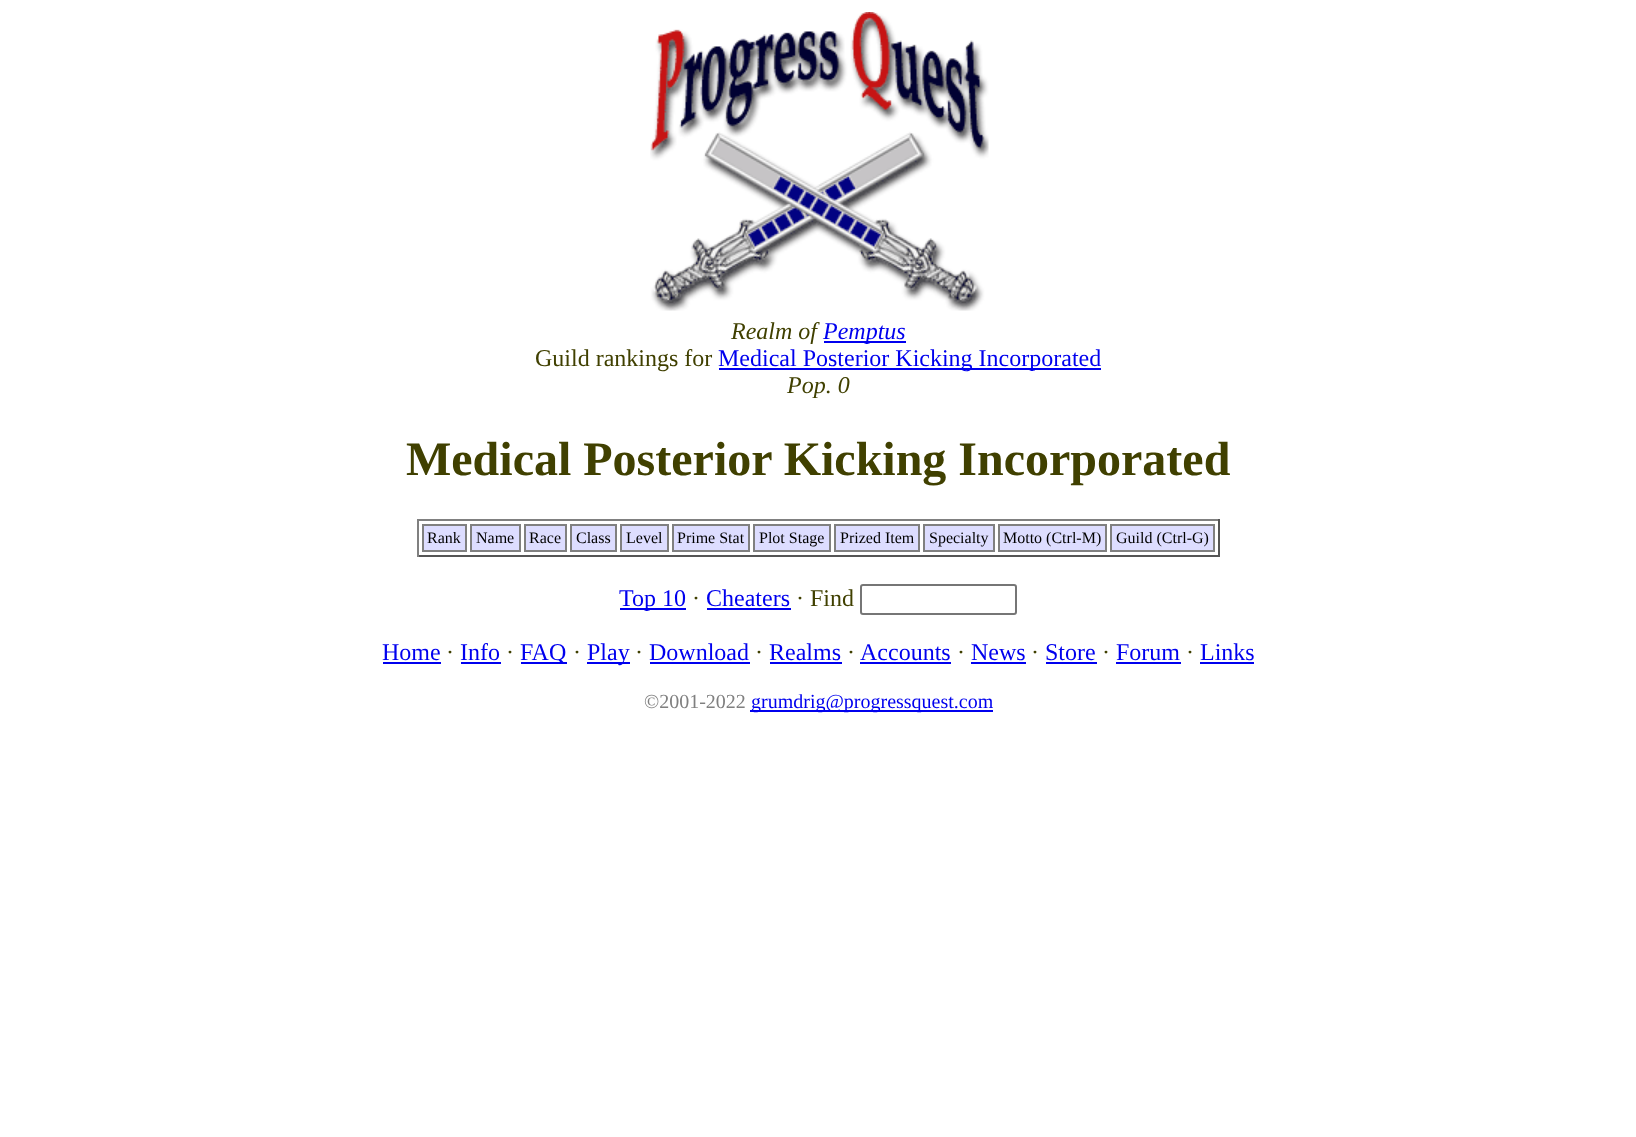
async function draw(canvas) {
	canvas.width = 1636;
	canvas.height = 1137;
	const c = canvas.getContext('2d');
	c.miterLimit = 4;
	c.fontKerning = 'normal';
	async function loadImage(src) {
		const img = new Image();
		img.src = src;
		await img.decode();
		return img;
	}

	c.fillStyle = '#fff';
	c.fillRect(0, 0, 1636, 1137);
	c.drawImage(await loadImage('img1.png'), 650, 12, 339, 299);
	c.font = 'italic 24px Liberation Serif';
	c.fillStyle = '#404000';
	c.fillText('Realm of', 731, 339);
	c.fillStyle = '#00e';
	c.fillRect(824, 341, 82, 2);
	c.fillText('Pemptus', 823, 339);
	c.font = '24px Liberation Serif';
	c.fillStyle = '#404000';
	c.fillText('Guild rankings for', 535, 366);
	c.fillStyle = '#00e';
	c.fillRect(719, 368, 382, 2);
	c.fillText('Medical Posterior Kicking Incorporated', 718, 366);
	c.font = 'italic 24px Liberation Serif';
	c.fillStyle = '#404000';
	c.fillText('Pop. 0', 787, 393);
	c.font = 'bold 48px Liberation Serif';
	c.fillText('Medical Posterior Kicking Incorporated', 406, 475);
	for (const [x, y, w, h, color] of [
		[417, 519, 803, 2, '#808080'],
		[1218, 519, 2, 38, '#555'],
		[417, 555, 803, 2, '#555'],
		[417, 519, 2, 38, '#808080'],
	]) {
		c.fillStyle = color;
		c.fillRect(x, y, w, h);
	}
	c.fillStyle = '#ddf';
	c.beginPath();
	c.rect(423, 525, 43, 26);
	c.fill();
	c.strokeStyle = '#808080';
	c.lineWidth = 2;
	c.stroke();
	c.font = '16px Liberation Serif';
	c.fillStyle = '#000';
	c.fillText('Rank', 427, 543);
	c.fillStyle = '#ddf';
	c.beginPath();
	c.rect(471, 525, 49, 26);
	c.fill();
	c.stroke();
	c.fillStyle = '#000';
	c.fillText('Name', 476, 543);
	c.fillStyle = '#ddf';
	c.beginPath();
	c.rect(525, 525, 41, 26);
	c.fill();
	c.stroke();
	c.fillStyle = '#000';
	c.fillText('Race', 529, 543);
	c.fillStyle = '#ddf';
	c.beginPath();
	c.rect(571, 525, 45, 26);
	c.fill();
	c.stroke();
	c.fillStyle = '#000';
	c.fillText('Class', 576, 543);
	c.fillStyle = '#ddf';
	c.beginPath();
	c.rect(621, 525, 47, 26);
	c.fill();
	c.stroke();
	c.fillStyle = '#000';
	c.fillText('Level', 626, 543);
	c.fillStyle = '#ddf';
	c.beginPath();
	c.rect(673, 525, 76, 26);
	c.fill();
	c.stroke();
	c.fillStyle = '#000';
	c.fillText('Prime Stat', 677, 543);
	c.fillStyle = '#ddf';
	c.beginPath();
	c.rect(754, 525, 76, 26);
	c.fill();
	c.stroke();
	c.fillStyle = '#000';
	c.fillText('Plot Stage', 759, 543);
	c.fillStyle = '#ddf';
	c.beginPath();
	c.rect(835, 525, 84, 26);
	c.fill();
	c.stroke();
	c.fillStyle = '#000';
	c.fillText('Prized Item', 840, 543);
	c.fillStyle = '#ddf';
	c.beginPath();
	c.rect(924, 525, 70, 26);
	c.fill();
	c.stroke();
	c.fillStyle = '#000';
	c.fillText('Specialty', 929, 543);
	c.fillStyle = '#ddf';
	c.beginPath();
	c.rect(999, 525, 107, 26);
	c.fill();
	c.stroke();
	c.fillStyle = '#000';
	c.fillText('Motto (Ctrl-M)', 1003, 543);
	c.fillStyle = '#ddf';
	c.beginPath();
	c.rect(1111, 525, 103, 26);
	c.fill();
	c.stroke();
	c.fillStyle = '#000';
	c.fillText('Guild (Ctrl-G)', 1116, 543);
	c.fillStyle = '#00e';
	c.fillRect(620, 608, 66, 2);
	c.font = '24px Liberation Serif';
	c.fillText('Top 10', 619, 606);
	c.fillStyle = '#404000';
	c.fillText('·', 692, 606);
	c.fillStyle = '#00e';
	c.fillText('Cheaters', 706, 606);
	c.fillRect(707, 608, 84, 2);
	c.fillStyle = '#404000';
	c.fillText('· Find', 796, 606);
	c.beginPath();
	c.roundRect(861, 585, 155, 29, 2);
	c.strokeStyle = '#767676';
	c.stroke();
	c.fillStyle = '#00e';
	c.fillText('Home', 382, 660);
	c.fillRect(383, 662, 58, 2);
	c.fillStyle = '#404000';
	c.fillText('·', 446, 660);
	c.fillStyle = '#00e';
	c.fillText('Info', 460, 660);
	c.fillRect(461, 662, 40, 2);
	c.fillStyle = '#404000';
	c.fillText('·', 506, 660);
	c.fillStyle = '#00e';
	c.fillRect(521, 662, 46, 2);
	c.fillText('FAQ', 520, 660);
	c.fillStyle = '#404000';
	c.fillText('·', 573, 660);
	c.fillStyle = '#00e';
	c.fillRect(587, 662, 43, 2);
	c.fillText('Play', 587, 660);
	c.fillStyle = '#404000';
	c.fillText('·', 635, 660);
	c.fillStyle = '#00e';
	c.fillText('Download', 649, 660);
	c.fillRect(650, 662, 100, 2);
	c.fillStyle = '#404000';
	c.fillText('·', 755, 660);
	c.fillStyle = '#00e';
	c.fillText('Realms', 769, 660);
	c.fillRect(770, 662, 72, 2);
	c.fillStyle = '#404000';
	c.fillText('·', 847, 660);
	c.fillStyle = '#00e';
	c.fillText('Accounts', 860, 660);
	c.fillRect(860, 662, 91, 2);
	c.fillStyle = '#404000';
	c.fillText('·', 957, 660);
	c.fillStyle = '#00e';
	c.fillText('News', 971, 660);
	c.fillRect(971, 662, 55, 2);
	c.fillStyle = '#404000';
	c.fillText('·', 1031, 660);
	c.fillStyle = '#00e';
	c.fillText('Store', 1045, 660);
	c.fillRect(1046, 662, 51, 2);
	c.fillStyle = '#404000';
	c.fillText('·', 1102, 660);
	c.fillStyle = '#00e';
	c.fillText('Forum', 1116, 660);
	c.fillRect(1116, 662, 65, 2);
	c.fillStyle = '#404000';
	c.fillText('·', 1186, 660);
	c.fillStyle = '#00e';
	c.fillText('Links', 1200, 660);
	c.fillRect(1200, 662, 54, 2);
	c.font = '20px Liberation Serif';
	c.fillStyle = '#808080';
	c.fillText('©2001-2022', 644, 708);
	c.fillStyle = '#00e';
	c.fillRect(750, 710, 243, 2);
	c.fillText('grumdrig@progressquest.com', 751, 708);
}

draw(document.querySelector('canvas'));
